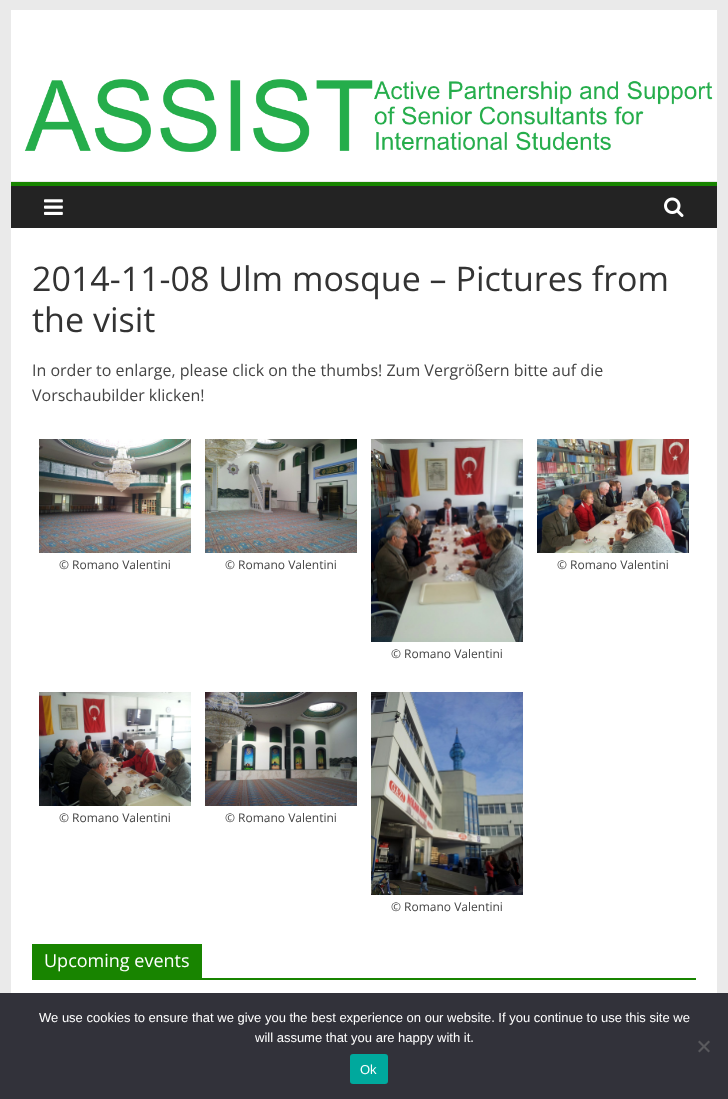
async function draw(canvas) {
	canvas.width = 728;
	canvas.height = 1099;
	const c = canvas.getContext('2d');
	c.miterLimit = 4;
	c.fontKerning = 'normal';
	async function loadImage(src) {
		const img = new Image();
		img.src = src;
		await img.decode();
		return img;
	}

	c.fillStyle = '#eaeaea';
	c.fillRect(0, 0, 728, 1099);
	c.fillStyle = '#fff';
	c.fillRect(11, 10, 706, 171);
	c.drawImage(await loadImage('img1.png'), 24, 79, 689, 73);
	c.fillStyle = '#232323';
	c.fillRect(11, 186, 706, 42);
	c.fillStyle = '#188400';
	c.fillRect(11, 182, 706, 4);
	c.drawImage(await loadImage('img2.png'), 44, 199, 19, 16);
	c.drawImage(await loadImage('img3.png'), 664, 197, 20, 20);
	c.fillStyle = '#fff';
	c.fillRect(11, 228, 706, 765);
	c.font = '34px Open Sans';
	c.fillStyle = '#333';
	c.fillText('2014-11-08 Ulm mosque – Pictures from', 32, 291);
	c.fillText('the visit', 32, 332);
	c.font = '16px Open Sans';
	c.fillStyle = '#444';
	c.fillText('In order to enlarge, please click on the thumbs! Zum Vergrößern bitte auf die', 32, 376);
	c.fillText('Vorschaubilder klicken!', 32, 401);
	c.drawImage(await loadImage('img4.png'), 39, 439, 152, 114);
	c.font = '12px Open Sans';
	c.fillText('© Romano Valentini', 59, 569);
	c.drawImage(await loadImage('img5.png'), 205, 439, 152, 114);
	c.fillText('© Romano Valentini', 225, 569);
	c.drawImage(await loadImage('img6.png'), 537, 439, 152, 114);
	c.fillText('© Romano Valentini', 557, 569);
	c.drawImage(await loadImage('img7.png'), 371, 439, 152, 203);
	c.fillText('© Romano Valentini', 391, 658);
	c.drawImage(await loadImage('img8.png'), 39, 692, 152, 114);
	c.fillText('© Romano Valentini', 59, 822);
	c.drawImage(await loadImage('img9.png'), 205, 692, 152, 114);
	c.fillText('© Romano Valentini', 225, 822);
	c.drawImage(await loadImage('img10.png'), 371, 692, 152, 203);
	c.fillText('© Romano Valentini', 391, 911);
	c.fillStyle = '#188400';
	c.fillRect(32, 978, 664, 2);
	c.fillRect(32, 944, 170, 34);
	c.font = '18px Open Sans';
	c.fillStyle = '#fff';
	c.fillText('Upcoming events', 44, 967);
	c.fillStyle = '#32323a';
	c.fillRect(0, 993, 728, 106);
	c.font = '13px Liberation Sans';
	c.fillStyle = '#fff';
	c.fillText('We use cookies to ensure that we give you the best experience on our website. If you continue to use this site we', 39, 1022);
	c.fillText('will assume that you are happy with it.', 255, 1042);
	c.fillStyle = '#59595d';
	c.beginPath();
	c.moveTo(708.5, 1040.5);
	c.lineTo(710, 1042);
	c.lineTo(699.5, 1052.5);
	c.lineTo(698, 1051);
	c.closePath();
	c.fill();
	c.beginPath();
	c.moveTo(698, 1042);
	c.lineTo(699.5, 1040.5);
	c.lineTo(710, 1051);
	c.lineTo(708.5, 1052.5);
	c.closePath();
	c.fill();
	c.fillStyle = '#00a99d';
	c.beginPath();
	c.roundRect(350, 1054, 38, 30, 3);
	c.fill();
	c.fillStyle = '#fff';
	c.fillText('Ok', 360, 1074);
}

draw(document.querySelector('canvas'));
